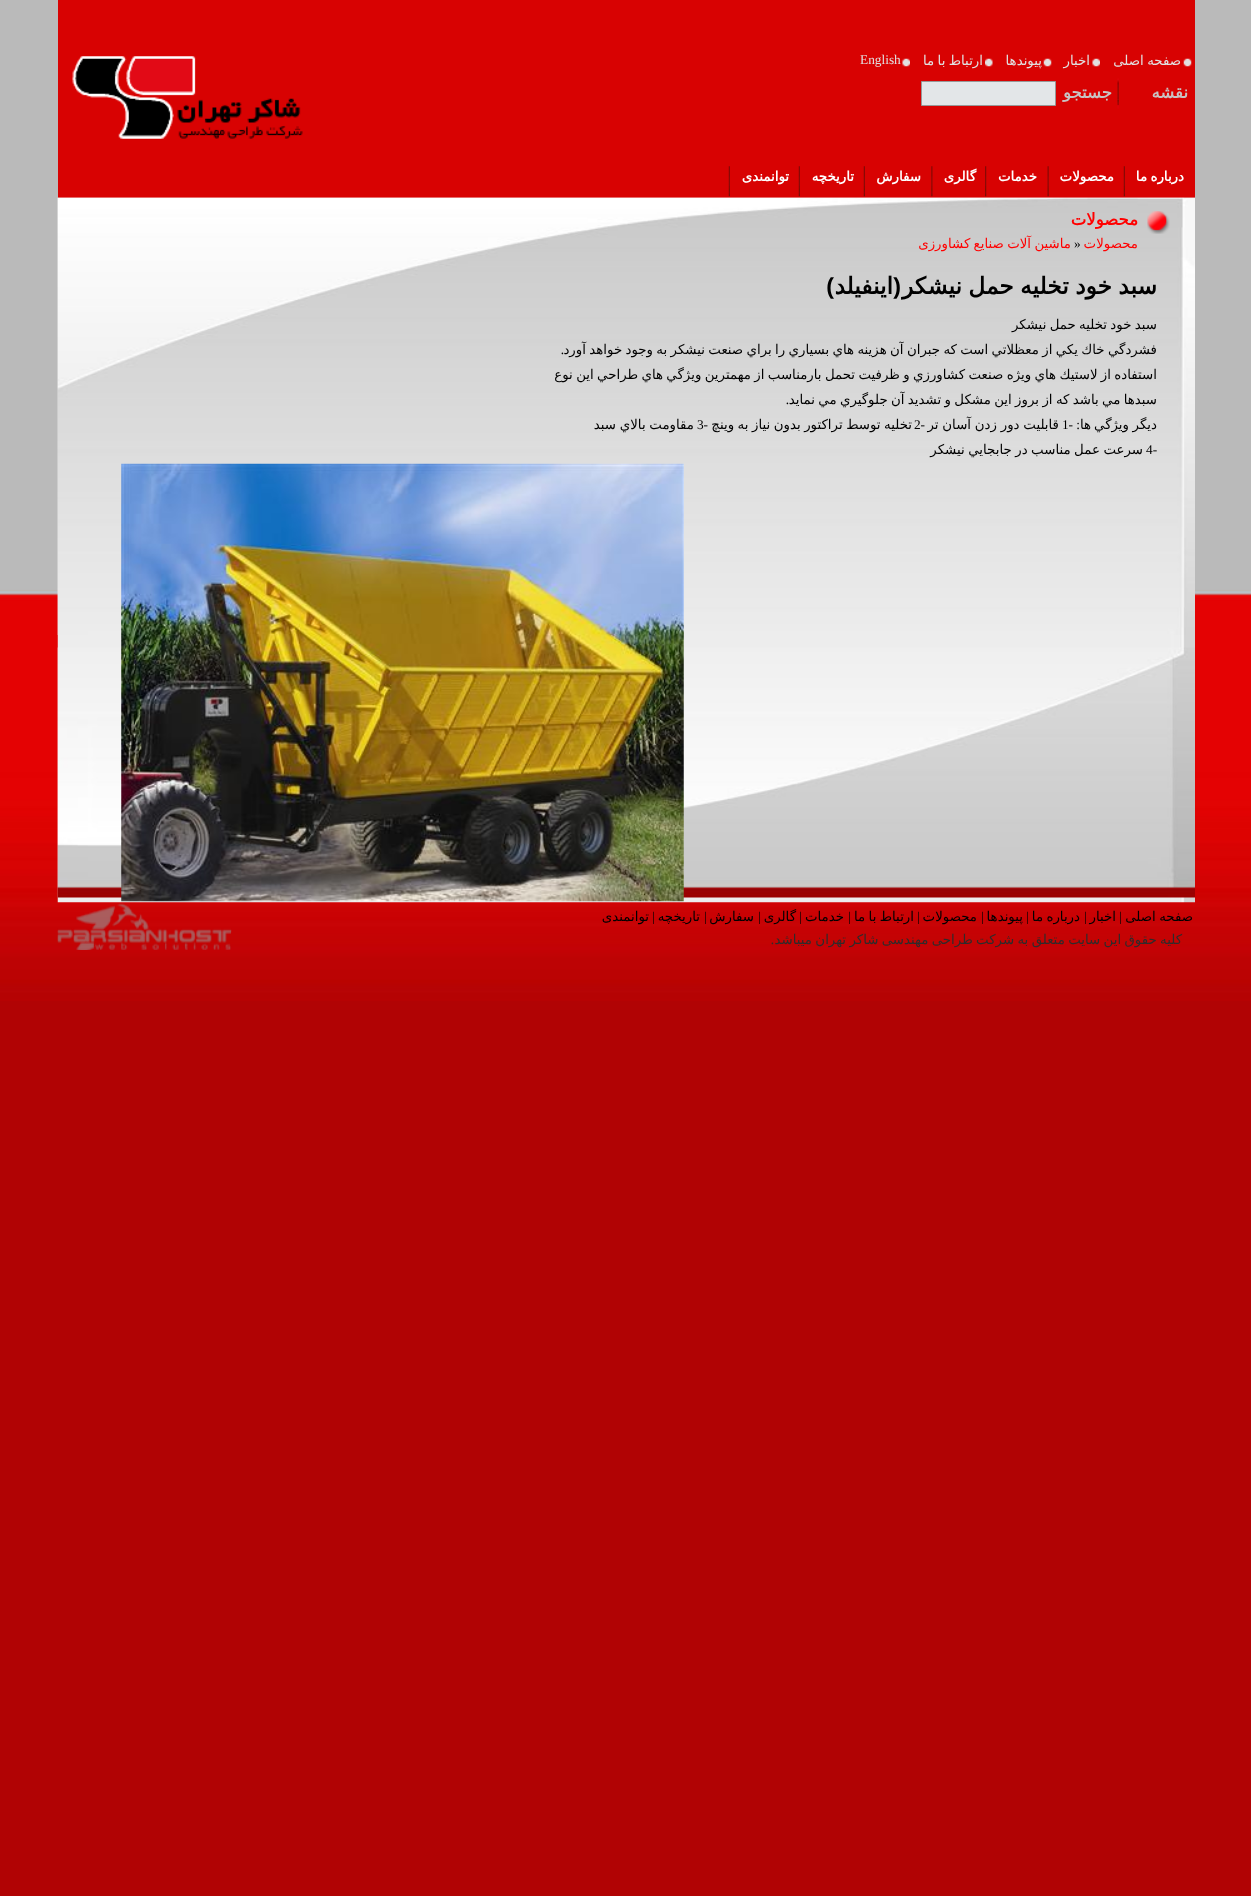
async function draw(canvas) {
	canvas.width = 1251;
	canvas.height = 1896;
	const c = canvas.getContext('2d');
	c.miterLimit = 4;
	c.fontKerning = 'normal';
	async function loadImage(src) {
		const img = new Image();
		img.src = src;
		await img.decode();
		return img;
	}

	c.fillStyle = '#b10304';
	c.fillRect(0, 0, 1251, 1896);
	c.drawImage(await loadImage('img1.png'), 0, 0, 1251, 1001);
	c.fillStyle = '#d80202';
	c.fillRect(58, 0, 1137, 198);
	c.drawImage(await loadImage('img2.png'), 1183, 58, 9, 9);
	c.wordSpacing = '-0.9px';
	c.direction = 'rtl';
	c.font = '13.35px DejaVu Sans';
	c.fillStyle = '#e1e1e1';
	c.fillText('صفحه اصلی', 1181, 65);
	c.drawImage(await loadImage('img3.png'), 1092, 58, 8, 9);
	c.wordSpacing = '0px';
	c.fillText('اخبار', 1090, 65);
	c.drawImage(await loadImage('img2.png'), 1043, 58, 9, 9);
	c.fillText('پیوندها', 1042, 65);
	c.drawImage(await loadImage('img4.png'), 985, 58, 8, 9);
	c.wordSpacing = '-0.9px';
	c.fillText('ارتباط با ما', 983, 65);
	c.drawImage(await loadImage('img5.png'), 902, 58, 8, 9);
	c.wordSpacing = '0px';
	c.direction = 'ltr';
	c.font = '13.35px Liberation Serif';
	c.fillText('English', 860, 64);
	c.drawImage(await loadImage('img6.png'), 72, 56, 231, 83);
	c.direction = 'rtl';
	c.font = 'bold 16.5px DejaVu Sans';
	c.fillStyle = '#c8c3c3';
	c.fillText('نقشه', 1188, 98);
	c.drawImage(await loadImage('img7.png'), 1117, 78, 2, 31);
	c.fillText('جستجو', 1112, 98);
	c.fillStyle = '#e3e6e8';
	c.beginPath();
	c.rect(921.5, 81.5, 134, 24);
	c.fill();
	c.strokeStyle = '#989898';
	c.stroke();
	c.drawImage(await loadImage('img8.png'), 1123, 166, 2, 31);
	c.wordSpacing = '-0.9px';
	c.font = 'bold 13.35px DejaVu Sans';
	c.fillStyle = '#fff';
	c.fillText('درباره ما', 1184, 181);
	c.drawImage(await loadImage('img9.png'), 1047, 166, 2, 31);
	c.wordSpacing = '0px';
	c.fillText('محصولات', 1114, 181);
	c.drawImage(await loadImage('img10.png'), 985, 166, 2, 31);
	c.fillText('خدمات', 1037, 181);
	c.drawImage(await loadImage('img11.png'), 931, 166, 2, 31);
	c.fillText('گالری', 976, 181);
	c.drawImage(await loadImage('img8.png'), 863, 166, 2, 31);
	c.fillText('سفارش', 921, 181);
	c.drawImage(await loadImage('img8.png'), 798, 166, 2, 31);
	c.fillText('تاریخچه', 854, 181);
	c.drawImage(await loadImage('img8.png'), 728, 166, 2, 31);
	c.fillText('توانمندی', 789, 181);
	c.drawImage(await loadImage('img12.png'), 57, 197, 1138, 706);
	c.drawImage(await loadImage('img13.png'), 57, 197, 1138, 438);
	c.drawImage(await loadImage('img14.png'), 57, 647, 1138, 251);
	c.drawImage(await loadImage('img15.png'), 1147, 211, 23, 23);
	c.font = 'bold 16.5px DejaVu Sans';
	c.fillStyle = '#f00';
	c.fillText('محصولات', 1138, 225);
	c.font = '13.35px DejaVu Sans';
	c.fillText('محصولات', 1138, 248);
	c.direction = 'ltr';
	c.font = '13.35px Liberation Serif';
	c.fillStyle = '#000';
	c.fillText('»', 1074, 248);
	c.wordSpacing = '-0.9px';
	c.direction = 'rtl';
	c.font = '13.35px DejaVu Sans';
	c.fillStyle = '#f00';
	c.fillText('ماشین آلات صنایع کشاورزی', 1071, 248);
	c.wordSpacing = '0px';
	c.font = 'bold 23.25px Liberation Sans';
	c.fillStyle = '#000';
	c.fillText('(', 901, 294);
	c.wordSpacing = '-1px';
	c.font = 'bold 23.25px DejaVu Sans';
	c.fillText('سبد خود تخليه حمل نيشكر', 1157, 294);
	c.wordSpacing = '0px';
	c.fillText('اينفيلد', 893, 294);
	c.font = 'bold 23.25px Liberation Sans';
	c.fillText(')', 834, 294);
	c.wordSpacing = '-0.9px';
	c.font = '13.35px DejaVu Sans';
	c.fillText('سبد خود تخليه حمل نيشكر', 1157, 329);
	c.fillText('فشردگي خاك يكي از معظلاتي است كه جبران آن هزينه هاي بسياري را براي صنعت نيشكر به وجود خواهد آورد', 1157, 354);
	c.wordSpacing = '0px';
	c.font = '13.35px Liberation Serif';
	c.fillText('.', 564, 354);
	c.wordSpacing = '-0.9px';
	c.font = '13.35px DejaVu Sans';
	c.fillText('استفاده از لاستيك هاي ويژه صنعت كشاورزي و ظرفيت تحمل بارمناسب از مهمترين ويژگي هاي طراحي اين نوع', 1157, 379);
	c.fillText('سبدها مي باشد كه از بروز اين مشكل و تشديد آن جلوگيري مي نمايد', 1157, 404);
	c.wordSpacing = '0px';
	c.font = '13.35px Liberation Serif';
	c.fillText('.', 789, 404);
	c.font = '13.35px DejaVu Sans';
	for (const [text, x, y] of [
		['ديگر', 1157, 429],
		['ويژگي', 1129, 429],
		['ها', 1091, 429],
	]) {
		c.fillText(text, x, y);
	}
	c.font = '13.35px Liberation Serif';
	c.fillText(': -', 1080, 429);
	c.direction = 'ltr';
	c.fillText('1', 1062, 429);
	c.wordSpacing = '-0.5px';
	c.direction = 'rtl';
	c.font = '13.35px DejaVu Sans';
	c.fillText('قابليت دور زدن آسان تر', 1059, 429);
	c.wordSpacing = '0px';
	c.font = '13.35px Liberation Serif';
	c.fillText('-', 925, 429);
	c.wordSpacing = '-0.75px';
	c.font = '13.35px DejaVu Sans';
	c.fillText('تخليه توسط تراكتور بدون نياز به وينچ', 912, 429);
	c.wordSpacing = '0px';
	c.direction = 'ltr';
	c.font = '13.35px Liberation Serif';
	c.fillText('2', 914, 429);
	c.direction = 'rtl';
	c.fillText('-', 708, 429);
	c.direction = 'ltr';
	c.fillText('3', 697, 429);
	c.wordSpacing = '-0.5px';
	c.direction = 'rtl';
	c.font = '13.35px DejaVu Sans';
	c.fillText('مقاومت بالاي سبد', 694, 429);
	c.wordSpacing = '0px';
	c.direction = 'ltr';
	c.font = '13.35px Liberation Serif';
	c.fillText('4-', 1146, 454);
	c.wordSpacing = '-0.75px';
	c.direction = 'rtl';
	c.font = '13.35px DejaVu Sans';
	c.fillText('سرعت عمل مناسب در جابجايي نيشكر', 1143, 454);
	c.drawImage(await loadImage('img16.png'), 121, 463, 563, 439);
	c.wordSpacing = '-0.9px';
	c.fillText('صفحه اصلی', 1193, 921);
	c.wordSpacing = '0px';
	c.direction = 'ltr';
	c.font = '13.35px Liberation Serif';
	c.fillText('|', 1119, 921);
	c.direction = 'rtl';
	c.font = '13.35px DejaVu Sans';
	c.fillText('اخبار', 1116, 921);
	c.direction = 'ltr';
	c.font = '13.35px Liberation Serif';
	c.fillText('|', 1084, 921);
	c.wordSpacing = '-0.9px';
	c.direction = 'rtl';
	c.font = '13.35px DejaVu Sans';
	c.fillText('درباره ما', 1080, 921);
	c.wordSpacing = '0px';
	c.direction = 'ltr';
	c.font = '13.35px Liberation Serif';
	c.fillText('|', 1026, 921);
	c.direction = 'rtl';
	c.font = '13.35px DejaVu Sans';
	c.fillText('پیوندها', 1023, 921);
	c.direction = 'ltr';
	c.font = '13.35px Liberation Serif';
	c.fillText('|', 981, 921);
	c.direction = 'rtl';
	c.font = '13.35px DejaVu Sans';
	c.fillText('محصولات', 977, 921);
	c.direction = 'ltr';
	c.font = '13.35px Liberation Serif';
	c.fillText('|', 917, 921);
	c.wordSpacing = '-0.9px';
	c.direction = 'rtl';
	c.font = '13.35px DejaVu Sans';
	c.fillText('ارتباط با ما', 914, 921);
	c.wordSpacing = '0px';
	c.direction = 'ltr';
	c.font = '13.35px Liberation Serif';
	c.fillText('|', 848, 921);
	c.direction = 'rtl';
	c.font = '13.35px DejaVu Sans';
	c.fillText('خدمات', 844, 921);
	c.direction = 'ltr';
	c.font = '13.35px Liberation Serif';
	c.fillText('|', 799, 921);
	c.direction = 'rtl';
	c.font = '13.35px DejaVu Sans';
	c.fillText('گالری', 796, 921);
	c.direction = 'ltr';
	c.font = '13.35px Liberation Serif';
	c.fillText('|', 758, 921);
	c.direction = 'rtl';
	c.font = '13.35px DejaVu Sans';
	c.fillText('سفارش', 754, 921);
	c.direction = 'ltr';
	c.font = '13.35px Liberation Serif';
	c.fillText('|', 704, 921);
	c.direction = 'rtl';
	c.font = '13.35px DejaVu Sans';
	c.fillText('تاریخچه', 700, 921);
	c.direction = 'ltr';
	c.font = '13.35px Liberation Serif';
	c.fillText('|', 652, 921);
	c.direction = 'rtl';
	c.font = '13.35px DejaVu Sans';
	c.fillText('توانمندی', 649, 921);
	c.drawImage(await loadImage('img17.png'), 57, 903, 175, 47);
	c.drawImage(await loadImage('img18.png'), 57, 905, 174, 45);
	c.wordSpacing = '-0.9px';
	c.fillStyle = '#2d2c2c';
	c.fillText('کلیه حقوق این سایت متعلق به شرکت طراحی مهندسی شاکر تهران میباشد', 1182, 944);
	c.wordSpacing = '0px';
	c.font = '13.35px Liberation Serif';
	c.fillText('.', 774, 944);
}

draw(document.querySelector('canvas'));
